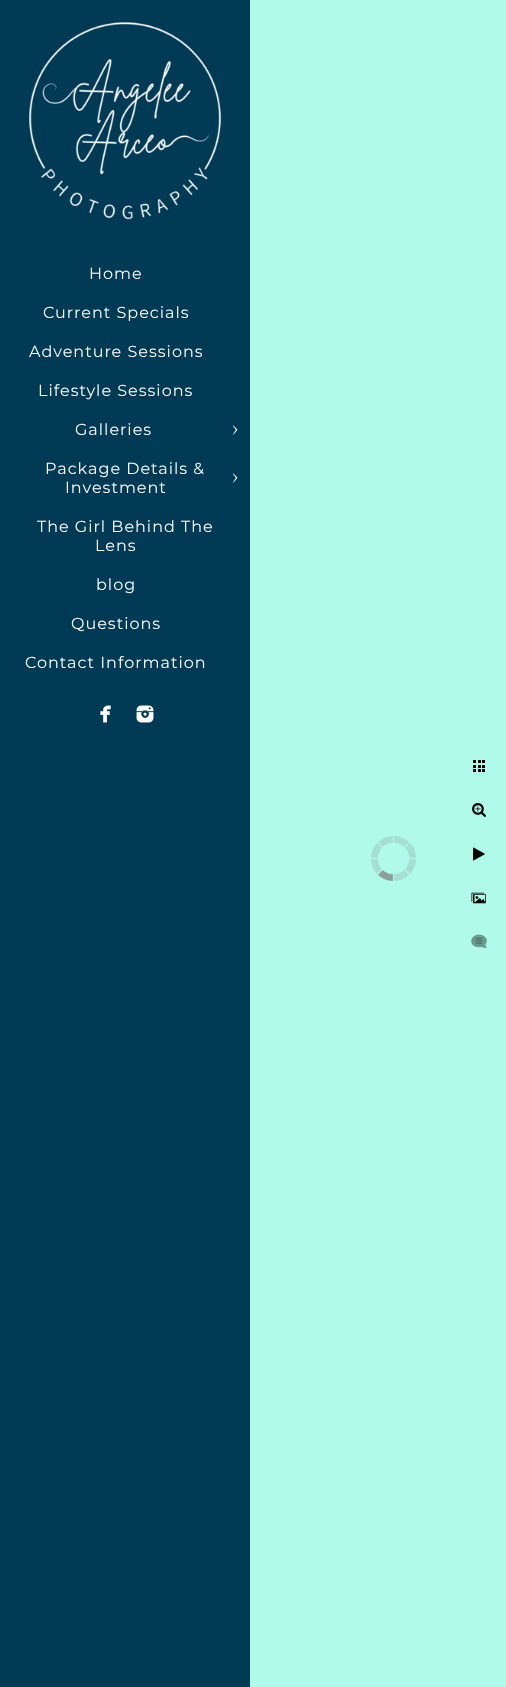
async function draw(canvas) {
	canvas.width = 506;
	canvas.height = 1687;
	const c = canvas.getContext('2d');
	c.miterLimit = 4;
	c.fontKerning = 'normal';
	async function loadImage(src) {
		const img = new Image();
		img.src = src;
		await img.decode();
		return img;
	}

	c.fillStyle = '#affae8';
	c.fillRect(0, 0, 506, 1687);
	c.fillStyle = '#013a55';
	c.fillRect(0, 0, 250, 1687);
	c.drawImage(await loadImage('img1.png'), 29, 22, 193, 198);
	c.letterSpacing = '1px';
	c.font = '100 16px Montserrat';
	c.fillStyle = '#fff';
	for (const [text, x, y] of [
		['Home', 89, 279],
		['Current Specials', 43, 318],
		['Adventure Sessions', 29, 357],
		['Lifestyle Sessions', 38, 396],
		['Galleries', 75, 435],
	]) {
		c.fillText(text, x, y);
	}
	c.drawImage(await loadImage('img2.png'), 232, 425, 6, 10);
	c.fillText('Package Details &', 45, 474);
	c.drawImage(await loadImage('img2.png'), 232, 473, 6, 10);
	for (const [text, x, y] of [
		['Investment', 65, 493],
		['The Girl Behind The', 37, 532],
		['Lens', 95, 551],
		['blog', 96, 590],
		['Questions', 71, 629],
		['Contact Information', 25, 668],
	]) {
		c.fillText(text, x, y);
	}
	c.drawImage(await loadImage('img3.png'), 100, 705, 11, 18);
	c.drawImage(await loadImage('img4.png'), 136, 705, 18, 18);
	c.drawImage(await loadImage('img5.png'), 371, 836, 45, 45);
	c.drawImage(await loadImage('img6.png'), 473, 760, 12, 12);
	c.drawImage(await loadImage('img7.png'), 472, 803, 14, 14);
	c.drawImage(await loadImage('img8.png'), 473, 847, 12, 14);
	c.drawImage(await loadImage('img9.png'), 471, 892, 15, 12);
	c.drawImage(await loadImage('img10.png'), 471, 934, 16, 15);
}

draw(document.querySelector('canvas'));
